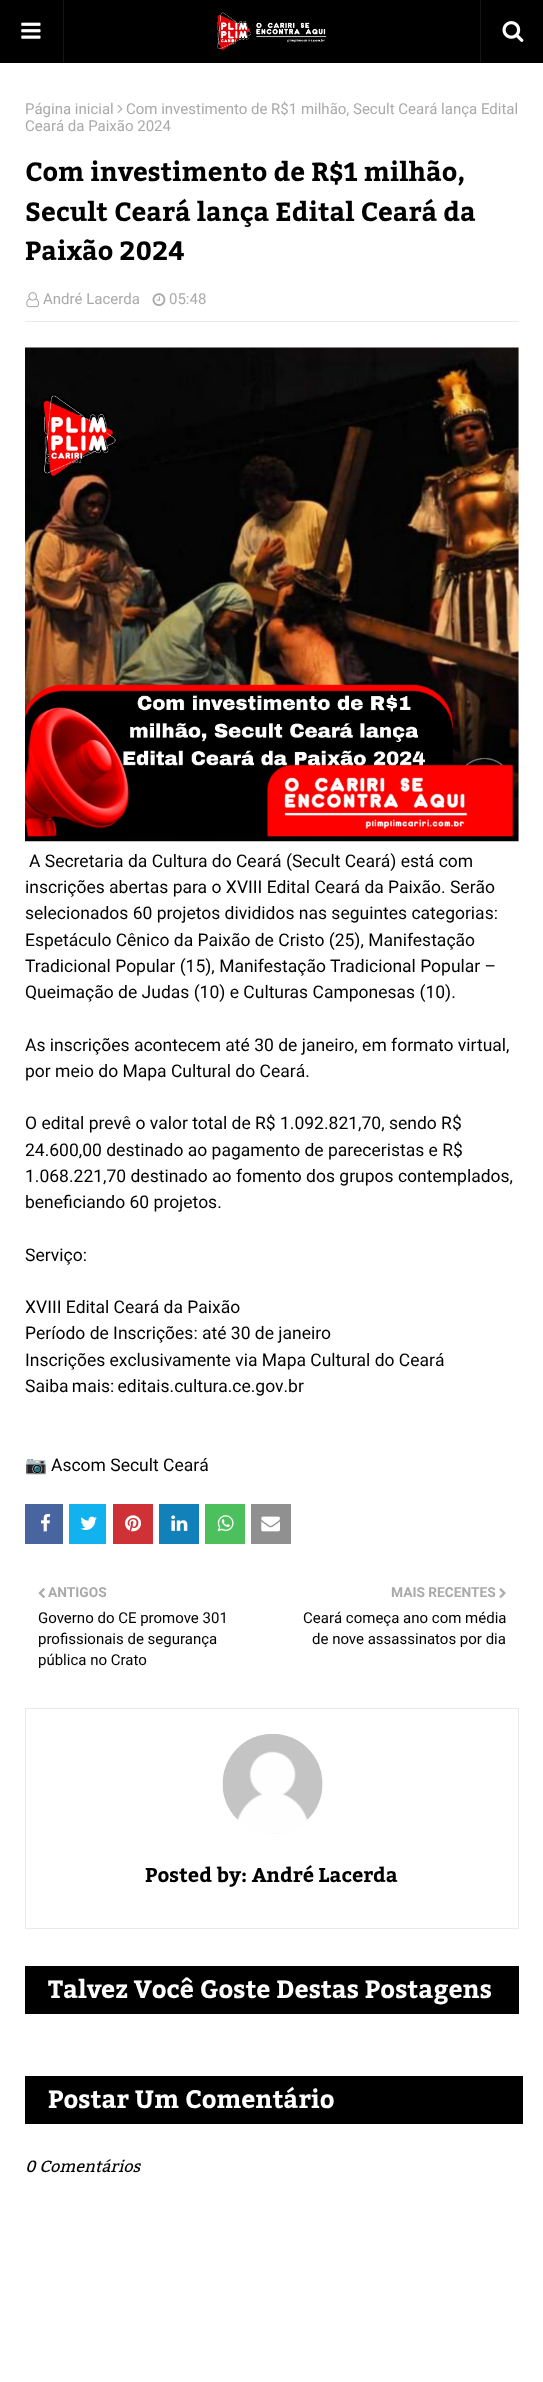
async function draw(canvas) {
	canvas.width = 543;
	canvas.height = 2382;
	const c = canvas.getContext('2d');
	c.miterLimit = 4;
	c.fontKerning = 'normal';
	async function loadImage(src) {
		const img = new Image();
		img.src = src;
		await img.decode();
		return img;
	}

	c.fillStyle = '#fff';
	c.fillRect(0, 0, 543, 2382);
	c.fillStyle = '#000';
	c.fillRect(0, 0, 543, 63);
	c.fillStyle = '#141414';
	c.fillRect(63, 0, 1, 63);
	c.drawImage(await loadImage('img1.png'), 21, 22, 20, 17);
	c.drawImage(await loadImage('img2.png'), 217, 12, 110, 38);
	c.fillRect(480, 0, 1, 63);
	c.drawImage(await loadImage('img3.png'), 502, 21, 22, 21);
	c.font = '15px Roboto';
	c.fillStyle = '#aaa';
	c.fillText('Página inicial', 25, 114);
	c.drawImage(await loadImage('img4.png'), 117, 104, 6, 9);
	c.fillText('Com investimento de R$1 milhão, Secult Ceará lança Edital', 126, 114);
	c.fillText('Ceará da Paixão 2024', 25, 131);
	c.font = 'bold 26.25px Kadwa';
	c.fillStyle = '#000';
	for (const [text, x, y] of [
		['Com investimento de R$1 milhão,', 25, 181],
		['Secult Ceará lança Edital Ceará da', 25, 221],
		['Paixão 2024', 25, 260],
	]) {
		c.fillText(text, x, y);
	}
	c.fillStyle = '#eaeaea';
	c.fillRect(25, 321, 494, 1);
	c.drawImage(await loadImage('img5.png'), 26, 292, 14, 16);
	c.font = '15px Roboto';
	c.fillStyle = '#aaa';
	c.fillText('André Lacerda', 43, 304);
	c.drawImage(await loadImage('img6.png'), 152, 293, 14, 13);
	c.fillText('05:48', 169, 304);
	c.drawImage(await loadImage('img7.png'), 25, 347, 494, 495);
	c.font = '17.5px Roboto';
	c.fillStyle = '#000';
	for (const [text, x, y] of [
		['A Secretaria da Cultura do Ceará (Secult Ceará) está com', 29, 867],
		['inscrições abertas para o XVIII Edital Ceará da Paixão. Serão', 25, 893],
		['selecionados 60 projetos divididos nas seguintes categorias:', 25, 919],
		['Espetáculo Cênico da Paixão de Cristo (25), Manifestação', 25, 946],
		['Tradicional Popular (15), Manifestação Tradicional Popular –', 25, 972],
		['Queimação de Judas (10) e Culturas Camponesas (10).', 25, 998],
		['As inscrições acontecem até 30 de janeiro, em formato virtual,', 25, 1051],
		['por meio do Mapa Cultural do Ceará.', 25, 1077],
		['O edital prevê o valor total de R$ 1.092.821,70, sendo R$', 25, 1129],
		['24.600,00 destinado ao pagamento de pareceristas e R$', 25, 1156],
		['1.068.221,70 destinado ao fomento dos grupos contemplados,', 25, 1182],
		['beneficiando 60 projetos.', 25, 1208],
		['Serviço:', 25, 1261],
		['XVIII Edital Ceará da Paixão', 25, 1313],
		['Período de Inscrições: até 30 de janeiro', 25, 1339],
		['Inscrições exclusivamente via Mapa Cultural do Ceará', 25, 1366],
	]) {
		c.fillText(text, x, y);
	}
	c.wordSpacing = '-1px';
	c.fillText('Saiba mais: editais.cultura.ce.gov.br', 25, 1392);
	c.wordSpacing = '0px';
	c.font = '17.5px Noto Color Emoji';
	c.fillText('📷', 25, 1471);
	c.font = '17.5px Roboto';
	c.fillText('Ascom Secult Ceará', 51, 1471);
	c.fillStyle = '#4965a0';
	c.fillRect(25, 1504, 38, 40);
	c.drawImage(await loadImage('img8.png'), 41, 1513, 10, 19);
	c.fillStyle = '#12b2ef';
	c.fillRect(69, 1504, 37, 40);
	c.drawImage(await loadImage('img9.png'), 80, 1516, 17, 14);
	c.fillStyle = '#ce3136';
	c.fillRect(113, 1504, 40, 40);
	c.drawImage(await loadImage('img10.png'), 125, 1515, 17, 17);
	c.fillStyle = '#1281ba';
	c.fillRect(159, 1504, 40, 40);
	c.drawImage(await loadImage('img11.png'), 171, 1515, 17, 16);
	c.fillStyle = '#4cc05c';
	c.fillRect(205, 1504, 40, 40);
	c.drawImage(await loadImage('img12.png'), 217, 1515, 17, 17);
	c.fillStyle = '#909090';
	c.fillRect(251, 1504, 40, 40);
	c.drawImage(await loadImage('img13.png'), 261, 1516, 19, 16);
	c.drawImage(await loadImage('img14.png'), 38, 1588, 7, 10);
	c.font = 'bold 13.75px Roboto';
	c.fillStyle = '#aaa';
	c.fillText('ANTIGOS', 48, 1597);
	c.font = '15px Roboto';
	c.fillStyle = '#000';
	for (const [text, x, y] of [
		['Governo do CE promove 301', 38, 1623],
		['profissionais de segurança', 38, 1644],
		['pública no Crato', 38, 1665],
	]) {
		c.fillText(text, x, y);
	}
	c.font = 'bold 13.75px Roboto';
	c.fillStyle = '#aaa';
	c.fillText('MAIS RECENTES', 391, 1597);
	c.drawImage(await loadImage('img15.png'), 499, 1588, 7, 10);
	c.font = '15px Roboto';
	c.fillStyle = '#000';
	c.fillText('Ceará começa ano com média', 303, 1623);
	c.fillText('de nove assassinatos por dia', 312, 1644);
	c.strokeStyle = '#eaeaea';
	c.strokeRect(25.5, 1708.5, 493, 220);
	c.fillStyle = '#fafafa';
	c.beginPath();
	c.arc(273, 1784, 50, 0, 2 * Math.PI);
	c.fill();
	c.drawImage(await loadImage('img16.png'), 222, 1734, 101, 99);
	c.font = 'bold 20px Kadwa';
	c.fillStyle = '#000';
	c.fillText('Posted by: André Lacerda', 145, 1882);
	c.fillRect(25, 1966, 494, 48);
	c.font = 'bold 25px Kadwa';
	c.fillStyle = '#fff';
	c.fillText('Talvez Você Goste Destas Postagens', 48, 1998);
	c.fillStyle = '#000';
	c.fillRect(25, 2076, 498, 48);
	c.fillStyle = '#fff';
	c.fillText('Postar Um Comentário', 48, 2108);
	c.font = 'italic 16.25px Kadwa';
	c.fillStyle = '#000';
	c.fillText('0 Comentários', 25, 2172);
}

draw(document.querySelector('canvas'));
